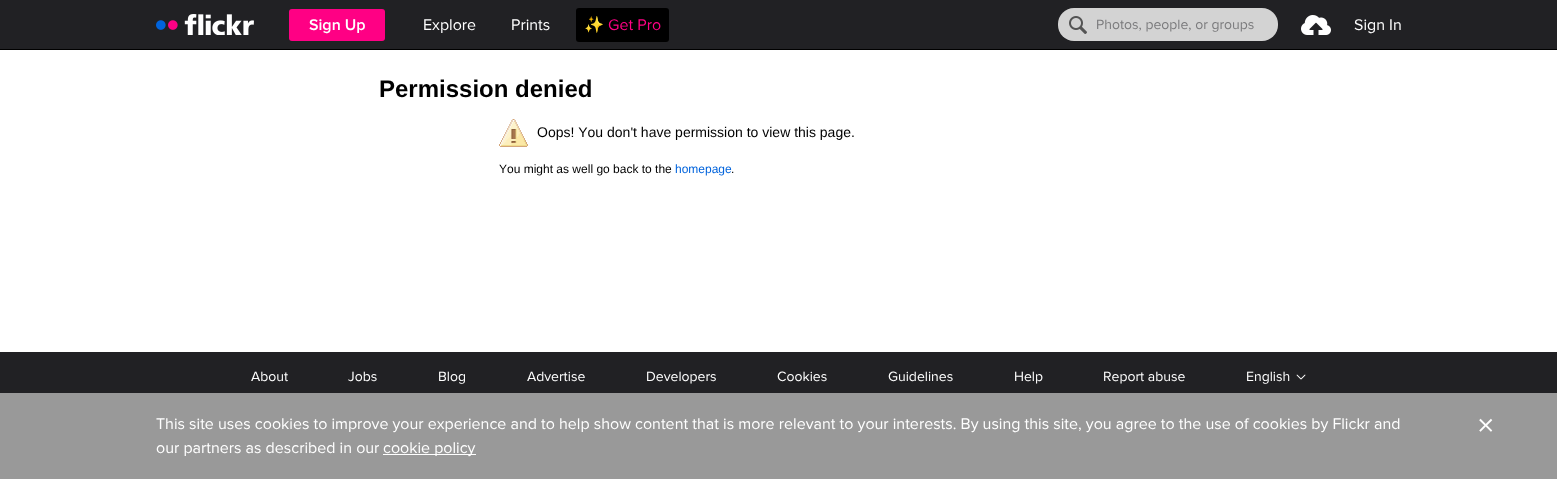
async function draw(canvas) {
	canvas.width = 1557;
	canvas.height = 479;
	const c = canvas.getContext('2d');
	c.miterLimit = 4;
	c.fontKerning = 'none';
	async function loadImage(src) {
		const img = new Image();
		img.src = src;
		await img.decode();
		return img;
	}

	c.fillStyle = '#fff';
	c.fillRect(0, 0, 1557, 479);
	c.fillStyle = '#212124';
	c.fillRect(0, 0, 1557, 49);
	c.fillStyle = '#000';
	c.fillRect(0, 49, 1557, 1);
	c.drawImage(await loadImage('img1.png'), 156, 14, 98, 21);
	c.fillStyle = '#ff0084';
	c.beginPath();
	c.roundRect(289, 9, 96, 32, 3);
	c.fill();
	c.font = '600 16px Proxima Nova';
	c.fillStyle = '#fff';
	c.fillText('Sign Up', 309, 30);
	c.font = '16px Proxima Nova';
	c.fillText('Explore', 423, 30);
	c.fillText('Prints', 511, 30);
	c.fillStyle = '#000';
	c.beginPath();
	c.roundRect(576, 8, 93, 34, 3);
	c.fill();
	c.font = '16px Noto Color Emoji';
	c.fillStyle = '#ff0085';
	c.fillText('✨', 584, 30);
	c.font = '16px Proxima Nova';
	c.fillText('Get Pro', 608, 30);
	c.fillStyle = '#d3d3d3';
	c.beginPath();
	c.roundRect(1058, 8, 220, 33, 16);
	c.fill();
	c.drawImage(await loadImage('img2.png'), 1069, 16, 18, 18);
	c.font = '14px Proxima Nova';
	c.fillStyle = '#7a7a7c';
	c.fillText('Photos, people, or groups', 1096, 29);
	c.drawImage(await loadImage('img3.png'), 1301, 15, 30, 20);
	c.font = '16px Proxima Nova';
	c.fillStyle = '#fff';
	c.fillText('Sign In', 1354, 30);
	c.font = 'bold 24px Liberation Sans';
	c.fillStyle = '#000';
	c.fillText('Permission denied', 379, 97);
	c.drawImage(await loadImage('img4.png'), 499, 119, 29, 28);
	c.font = '14px Liberation Sans';
	c.fillText('Oops! You don\'t have permission to view this page.', 537, 137);
	c.font = '12px Liberation Sans';
	c.fillText('You might as well go back to the', 499, 173);
	c.fillStyle = '#0063dc';
	c.fillText('homepage', 675, 173);
	c.fillStyle = '#000';
	c.fillText('.', 731, 173);
	c.fillStyle = '#212124';
	c.fillRect(0, 352, 1557, 41);
	c.font = '14px Proxima Nova';
	c.fillStyle = '#fff';
	for (const [text, x, y] of [
		['About', 251, 381],
		['Jobs', 348, 381],
		['Blog', 438, 381],
		['Advertise', 527, 381],
		['Developers', 646, 381],
		['Cookies', 777, 381],
		['Guidelines', 888, 381],
		['Help', 1014, 381],
		['Report abuse', 1103, 381],
		['English', 1246, 381],
	]) {
		c.fillText(text, x, y);
	}
	c.drawImage(await loadImage('img5.png'), 1296, 374, 10, 6);
	c.fillStyle = '#999';
	c.fillRect(0, 393, 1557, 86);
	c.font = '16px Proxima Nova';
	c.fillStyle = '#fff';
	c.fillText('This site uses cookies to improve your experience and to help show content that is more relevant to your interests. By using this site, you agree to the use of cookies by Flickr and', 156, 429);
	c.fillText('our partners as described in our', 156, 453);
	c.fillRect(383, 454, 93, 1);
	c.fillText('cookie policy', 383, 453);
	c.font = '35px Proxima Nova';
	c.fillText('×', 1477, 437);
}

draw(document.querySelector('canvas'));
